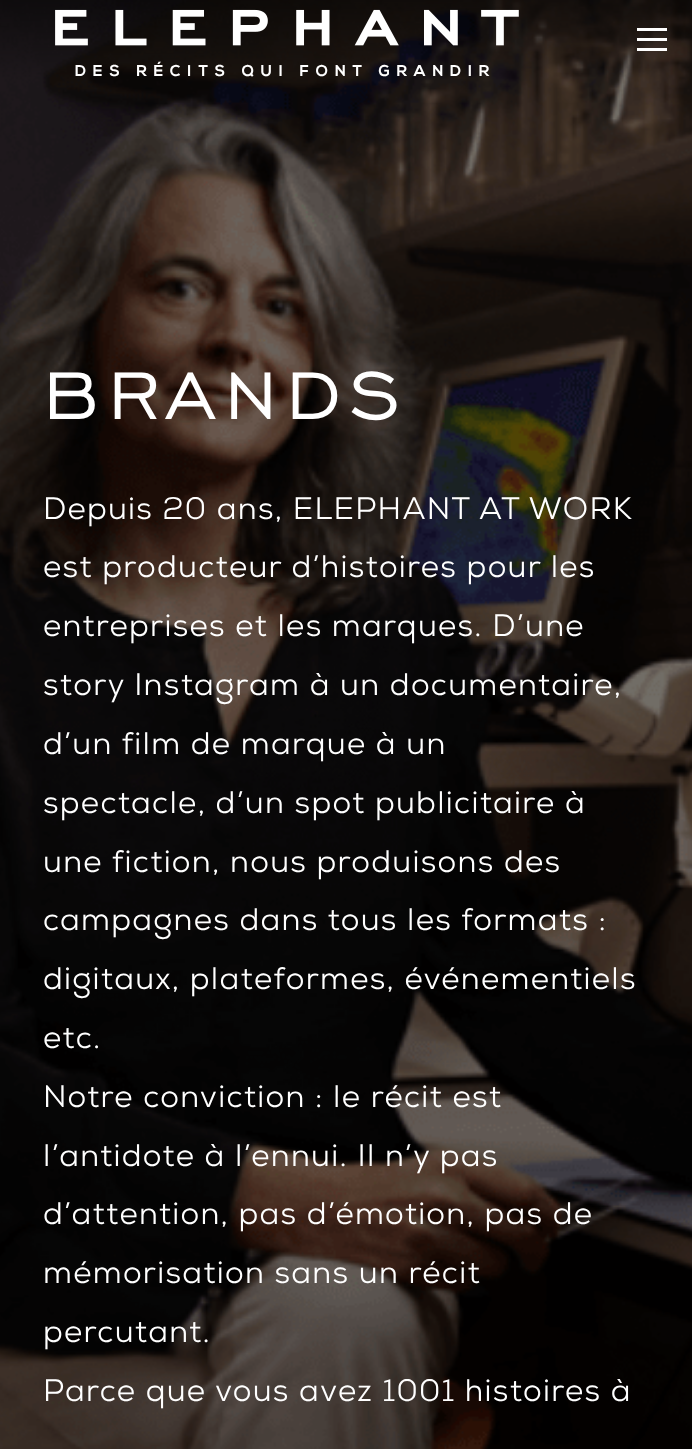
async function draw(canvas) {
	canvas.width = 692;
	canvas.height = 1449;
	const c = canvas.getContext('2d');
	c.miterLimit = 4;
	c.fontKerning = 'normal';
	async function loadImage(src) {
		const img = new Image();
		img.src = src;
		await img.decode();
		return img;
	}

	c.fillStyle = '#fff';
	c.fillRect(0, 0, 692, 1449);
	c.drawImage(await loadImage('img2.png'), 0, 0, 692, 1449);
	for (const [x, y, w, h, color] of [
		[637, 28, 30, 3, '#fff'],
		[637, 38, 30, 3, '#fff'],
		[637, 48, 30, 3, '#fff'],
	]) {
		c.fillStyle = color;
		c.fillRect(x, y, w, h);
	}
	c.drawImage(await loadImage('img1.png'), 55, 9, 464, 37);
	c.letterSpacing = '6.7px';
	c.font = 'bold 15.6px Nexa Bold';
	c.fillText('DES RÉCITS QUI FONT GRANDIR', 75, 76);
	c.letterSpacing = '8.5px';
	c.font = '86.5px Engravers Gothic';
	c.fillText('BRANDS', 43, 419);
	c.letterSpacing = '1.3px';
	c.font = '31.1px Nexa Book';
	for (const [text, x, y] of [
		['Depuis 20 ans, ELEPHANT AT WORK', 43, 519],
		['est producteur d’histoires pour les', 43, 577],
		['entreprises et les marques. D’une', 43, 636],
		['story Instagram à un documentaire,', 43, 695],
		['d’un film de marque à un', 43, 754],
		['spectacle, d’un spot publicitaire à', 43, 813],
		['une fiction, nous produisons des', 43, 872],
		['campagnes dans tous les formats :', 43, 930],
		['digitaux, plateformes, événementiels', 43, 989],
		['etc.', 43, 1048],
		['Notre conviction : le récit est', 43, 1107],
		['l’antidote à l’ennui. Il n’y pas', 43, 1166],
		['d’attention, pas d’émotion, pas de', 43, 1224],
		['mémorisation sans un récit', 43, 1283],
		['percutant.', 43, 1342],
		['Parce que vous avez 1001 histoires à', 43, 1401],
	]) {
		c.fillText(text, x, y);
	}
}

draw(document.querySelector('canvas'));
